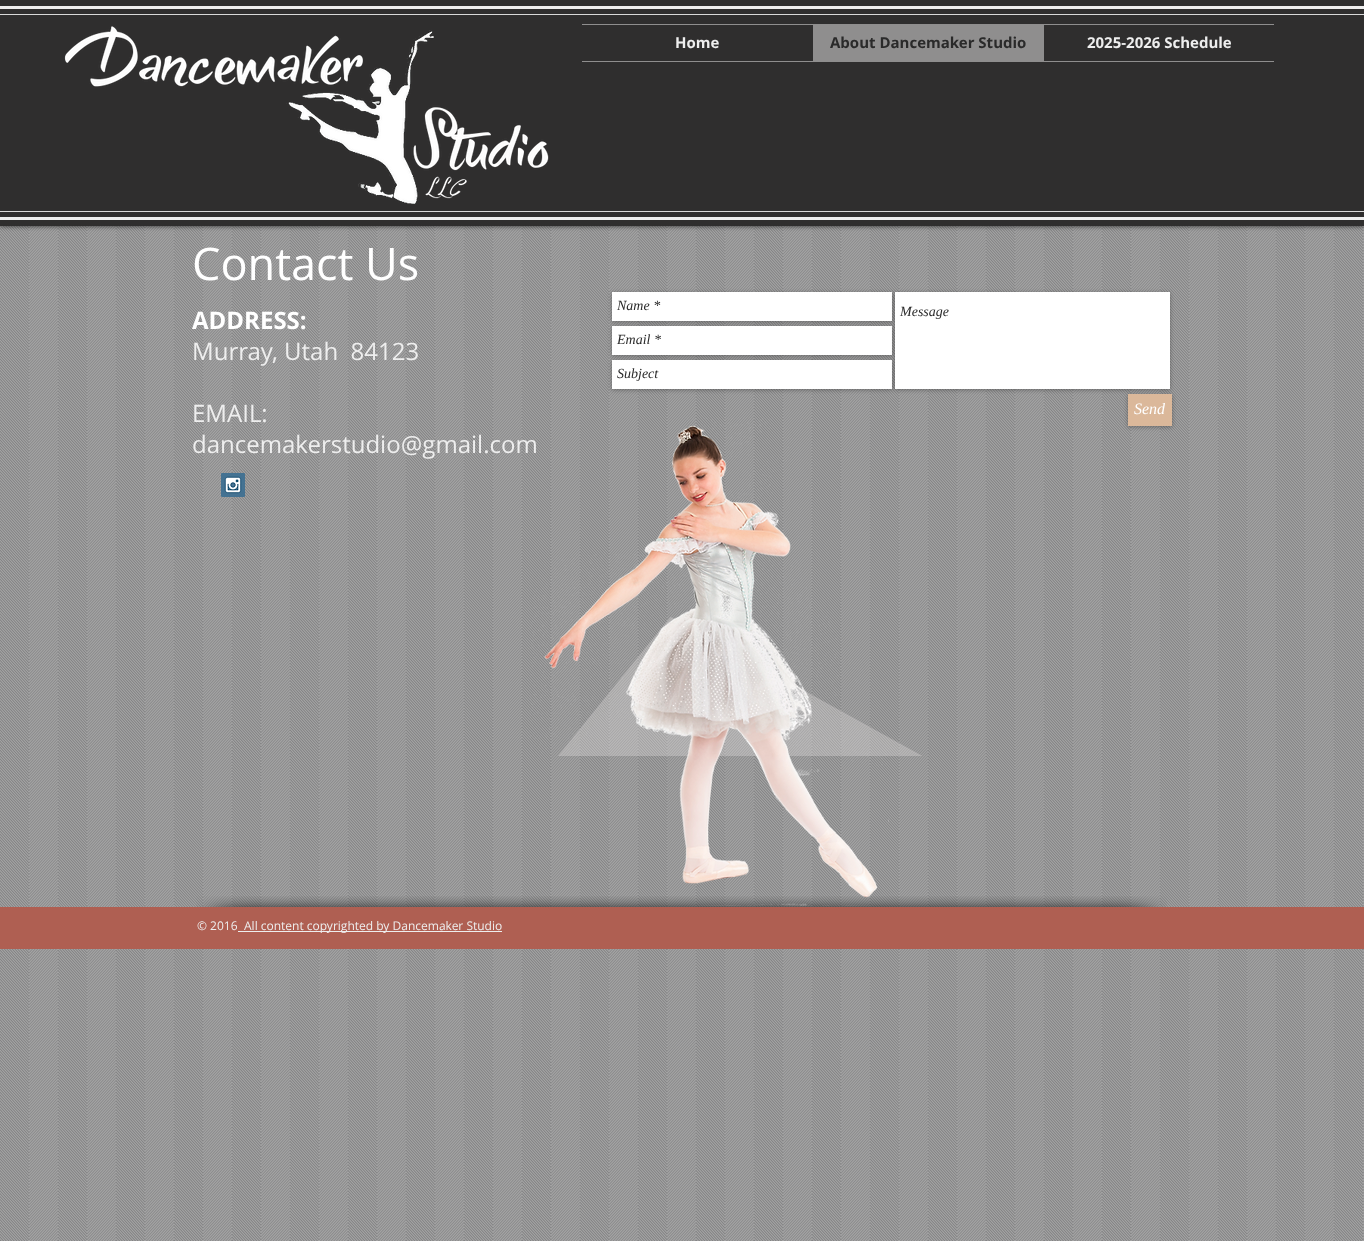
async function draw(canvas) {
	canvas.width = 1364;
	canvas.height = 1241;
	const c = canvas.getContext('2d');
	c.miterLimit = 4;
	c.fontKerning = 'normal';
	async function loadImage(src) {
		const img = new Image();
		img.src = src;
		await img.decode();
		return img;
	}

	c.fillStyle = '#a7a7a7';
	c.fillRect(0, 0, 1364, 1241);
	c.drawImage(await loadImage('img8.png'), 0, 226, 1364, 1015);
	c.fillStyle = '#000000b3';
	c.filter = 'blur(2.5px)';
	c.beginPath();
	c.rect(0, 0, 1364, 226);
	c.fill();
	c.filter = 'none';
	for (const [x, y, w, h, color] of [
		[0, 0, 1364, 226, '#2f2e2e'],
		[0, 6, 1364, 3, '#eee'],
		[0, 217, 1364, 3, '#eee'],
		[0, 14, 1364, 1, '#d9d9d9'],
		[0, 211, 1364, 1, '#d9d9d9'],
	]) {
		c.fillStyle = color;
		c.fillRect(x, y, w, h);
	}
	c.drawImage(await loadImage('img1.png'), 64, 26, 485, 178);
	c.fillStyle = '#8f8e8e';
	c.fillRect(582, 24, 692, 1);
	c.fillRect(582, 61, 692, 1);
	c.font = 'bold 15px Open Sans';
	c.fillStyle = '#eee';
	c.fillText('Home', 675, 48);
	c.fillStyle = '#8f8e8e';
	c.fillRect(813, 25, 231, 36);
	c.fillStyle = '#2a2a2a';
	c.fillText('About Dancemaker Studio', 830, 48);
	c.fillStyle = '#eee';
	c.fillText('2025-2026 Schedule', 1087, 48);
	c.font = '45px Open Sans';
	c.fillStyle = '#fff';
	c.fillText('Contact Us', 192, 280);
	c.font = 'bold 24px Open Sans';
	c.fillText('ADDRESS:', 192, 329);
	c.font = '24px Open Sans';
	c.fillStyle = '#eee';
	c.fillText('Murray, Utah  84123', 192, 360);
	c.fillText('EMAIL:', 192, 422);
	c.drawImage(await loadImage('img4.png'), 558, 617, 364, 139);
	c.drawImage(await loadImage('img3.png'), 530, 418, 359, 488);
	c.fillText('dancemakerstudio@gmail.com', 192, 453);
	c.fillStyle = '#0000004d';
	c.filter = 'blur(2px)';
	c.beginPath();
	c.rect(612, 293, 280, 29);
	c.fill();
	c.filter = 'none';
	c.fillStyle = '#fff';
	c.fillRect(612, 292, 280, 29);
	c.font = 'italic 14px Liberation Serif';
	c.fillStyle = '#2a2a2a';
	c.fillText('Name *', 617, 310);
	c.fillStyle = '#0000004d';
	c.filter = 'blur(2px)';
	c.beginPath();
	c.rect(612, 327, 280, 29);
	c.fill();
	c.filter = 'none';
	c.fillStyle = '#fff';
	c.fillRect(612, 326, 280, 29);
	c.fillStyle = '#0000004d';
	c.filter = 'blur(2px)';
	c.beginPath();
	c.rect(612, 361, 280, 29);
	c.fill();
	c.filter = 'none';
	c.fillStyle = '#fff';
	c.fillRect(612, 360, 280, 29);
	c.fillStyle = '#0000004d';
	c.filter = 'blur(2px)';
	c.beginPath();
	c.rect(895, 293, 275, 97);
	c.fill();
	c.filter = 'none';
	c.fillStyle = '#fff';
	c.fillRect(895, 292, 275, 97);
	c.fillStyle = '#2a2a2a';
	for (const [text, x, y] of [
		['Message', 900, 316],
		['Email *', 617, 344],
		['Subject', 617, 378],
	]) {
		c.fillText(text, x, y);
	}
	c.fillStyle = '#0000004d';
	c.filter = 'blur(2px)';
	c.beginPath();
	c.rect(1128, 395, 44, 32);
	c.fill();
	c.filter = 'none';
	c.fillStyle = '#dbb89a';
	c.fillRect(1128, 394, 44, 32);
	c.font = 'italic 16px Liberation Serif';
	c.fillStyle = '#fff';
	c.fillText('Send', 1134, 414);
	c.drawImage(await loadImage('img2.png'), 221, 473, 24, 24);
	c.fillStyle = '#af5f52';
	c.fillRect(0, 907, 1364, 42);
	c.drawImage(await loadImage('img5.png'), 196, 896, 96, 11);
	c.drawImage(await loadImage('img6.png'), 292, 896, 780, 11);
	c.drawImage(await loadImage('img7.png'), 1072, 896, 95, 11);
	c.font = '12px Open Sans';
	c.fillStyle = '#eee';
	c.fillText('© 2016', 197, 930);
	c.fillRect(238, 931, 264, 1);
	c.fillText('All content copyrighted by Dancemaker Studio', 244, 930);
}

draw(document.querySelector('canvas'));
